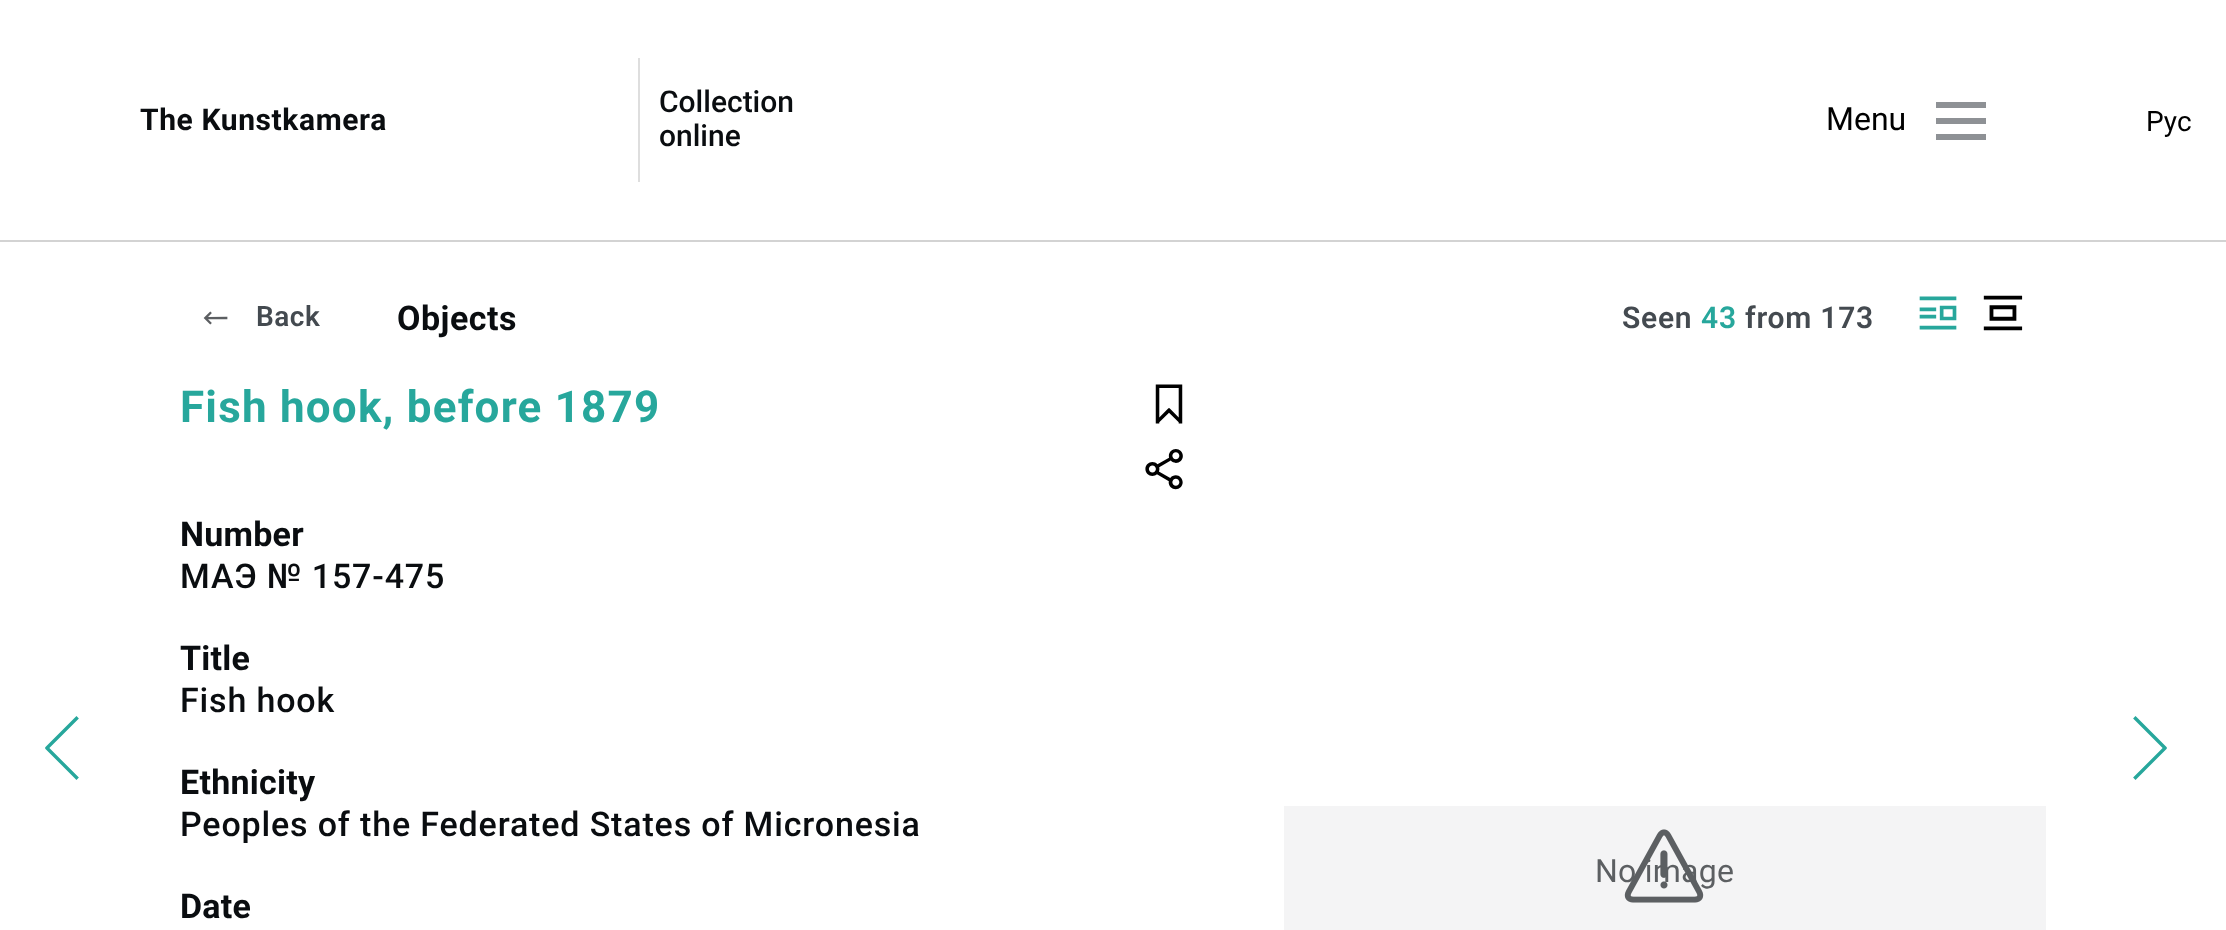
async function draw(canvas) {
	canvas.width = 2226;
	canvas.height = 930;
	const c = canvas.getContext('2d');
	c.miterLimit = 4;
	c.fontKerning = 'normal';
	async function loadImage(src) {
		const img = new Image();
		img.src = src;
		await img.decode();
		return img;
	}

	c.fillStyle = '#fff';
	c.fillRect(0, 0, 2226, 930);
	c.fillStyle = '#d3d3d3';
	c.fillRect(0, 240, 2226, 2);
	c.letterSpacing = '0.6px';
	c.font = 'bold 30px Roboto';
	c.fillStyle = '#0a0d10';
	c.fillText('The Kunstkamera', 140, 130);
	c.fillStyle = '#dedede';
	c.fillRect(638, 58, 2, 124);
	c.letterSpacing = '0px';
	c.font = '500 30px Roboto';
	c.fillStyle = '#0a0d10';
	c.fillText('Collection', 659, 112);
	c.fillText('online', 659, 146);
	c.fillStyle = '#8e9195';
	c.fillRect(1936, 102, 50, 6);
	c.font = '32px Roboto';
	c.fillStyle = '#000';
	c.fillText('Menu', 1826, 130);
	c.fillStyle = '#8e9195';
	c.fillRect(1936, 118, 50, 6);
	c.fillRect(1936, 134, 50, 6);
	c.font = '28px Roboto';
	c.fillStyle = '#000';
	c.fillText('Рус', 2146, 131);
	c.drawImage(await loadImage('img1.png'), 203, 311, 25, 14);
	c.letterSpacing = '0.5px';
	c.font = '600 28px Roboto';
	c.fillStyle = '#444a50';
	c.fillText('Back', 256, 326);
	c.font = 'bold 34px Roboto';
	c.fillStyle = '#0a0d10';
	c.fillText('Objects', 397, 330);
	c.letterSpacing = '0.75px';
	c.font = '600 30px Roboto';
	c.fillStyle = '#444a50';
	c.fillText('Seen', 1622, 328);
	c.fillStyle = '#27a79c';
	c.fillText('43', 1701, 328);
	c.fillStyle = '#444a50';
	c.fillText('from 173', 1745, 328);
	c.drawImage(await loadImage('img2.png'), 1919, 296, 38, 34);
	c.drawImage(await loadImage('img3.png'), 1983, 295, 40, 36);
	c.drawImage(await loadImage('img4.png'), 45, 716, 34, 64);
	c.letterSpacing = '1.2px';
	c.font = 'bold 44px Roboto';
	c.fillStyle = '#27a79c';
	c.fillText('Fish hook, before 1879', 180, 422);
	c.drawImage(await loadImage('img5.png'), 1155, 384, 28, 40);
	c.drawImage(await loadImage('img6.png'), 1145, 449, 38, 41);
	c.letterSpacing = '0.25px';
	c.font = 'bold 34px Roboto';
	c.fillStyle = '#0a0d10';
	c.fillText('Number', 180, 546);
	c.letterSpacing = '0.85px';
	c.font = '500 34px Roboto';
	c.fillText('МАЭ № 157-475', 180, 588);
	c.letterSpacing = '0.25px';
	c.font = 'bold 34px Roboto';
	c.fillText('Title', 180, 670);
	c.letterSpacing = '0.85px';
	c.font = '500 34px Roboto';
	c.fillText('Fish hook', 180, 712);
	c.letterSpacing = '0.25px';
	c.font = 'bold 34px Roboto';
	c.fillText('Ethnicity', 180, 794);
	c.letterSpacing = '0.85px';
	c.font = '500 34px Roboto';
	c.fillText('Peoples of the Federated States of Micronesia', 180, 836);
	c.letterSpacing = '0.25px';
	c.font = 'bold 34px Roboto';
	c.fillText('Date', 180, 918);
	c.fillStyle = '#f4f4f5';
	c.fillRect(1284, 806, 762, 124);
	c.font = '32px Roboto';
	c.fillStyle = '#5c5f62';
	c.fillText('No image', 1595, 882);
	c.drawImage(await loadImage('img7.png'), 1624, 829, 80, 74);
	c.drawImage(await loadImage('img8.png'), 2133, 716, 34, 64);
}

draw(document.querySelector('canvas'));
